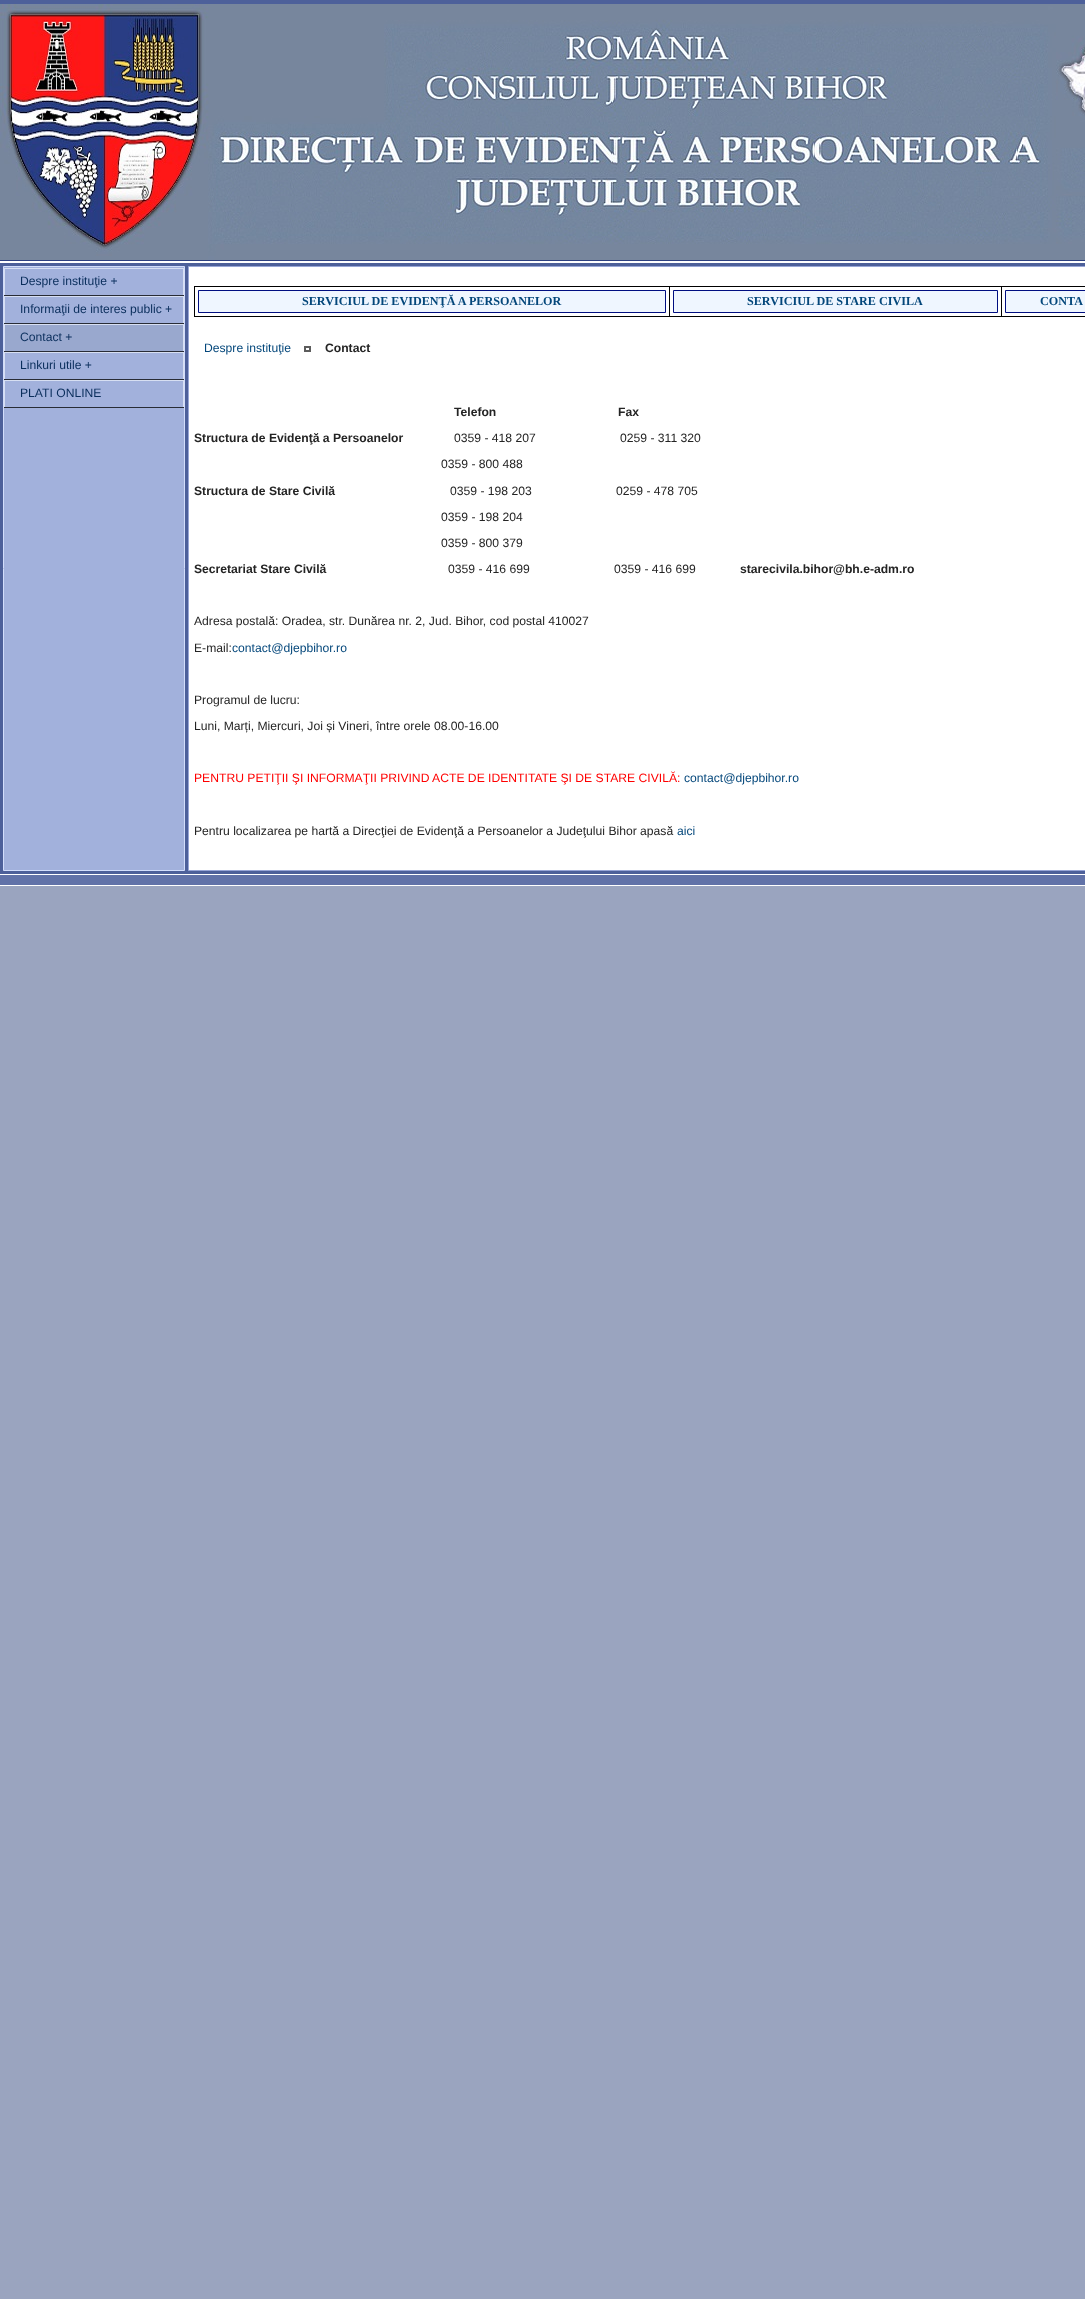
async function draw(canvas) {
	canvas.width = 1085;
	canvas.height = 2299;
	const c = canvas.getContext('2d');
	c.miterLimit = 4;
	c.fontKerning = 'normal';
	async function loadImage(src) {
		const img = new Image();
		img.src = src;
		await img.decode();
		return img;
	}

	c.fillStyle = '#9aa4bf';
	c.fillRect(0, 0, 1085, 2299);
	c.fillStyle = '#4d609a';
	c.fillRect(0, 0, 1085, 874);
	c.drawImage(await loadImage('img1.png'), 0, 4, 1085, 252);
	c.drawImage(await loadImage('img2.png'), 0, 256, 1085, 4);
	c.fillStyle = '#2e4080';
	c.fillRect(0, 260, 1085, 1);
	c.fillStyle = '#fff';
	c.fillRect(0, 261, 1085, 2);
	c.fillStyle = '#a2b1dc';
	c.beginPath();
	c.rect(3.5, 266.5, 181, 604);
	c.fill();
	c.strokeStyle = '#d2ddfb';
	c.stroke();
	for (const [x, y, w, h, color] of [
		[4, 295, 180, 1, '#282c36'],
		[4, 268, 180, 1, '#d7dff2'],
		[183, 268, 1, 27, '#d7dff2'],
		[4, 268, 1, 27, '#d7dff2'],
	]) {
		c.fillStyle = color;
		c.fillRect(x, y, w, h);
	}
	c.font = '12.15px Liberation Sans';
	c.fillStyle = '#0a2e5c';
	c.fillText('Despre instituţie +', 20, 285);
	for (const [x, y, w, h, color] of [
		[4, 323, 180, 1, '#282c36'],
		[4, 296, 180, 1, '#d7dff2'],
		[183, 296, 1, 27, '#d7dff2'],
		[4, 296, 1, 27, '#d7dff2'],
	]) {
		c.fillStyle = color;
		c.fillRect(x, y, w, h);
	}
	c.fillStyle = '#0a2e5c';
	c.fillText('Informaţii de interes public +', 20, 313);
	for (const [x, y, w, h, color] of [
		[4, 351, 180, 1, '#282c36'],
		[5, 325, 178, 26, '#99a8ce'],
		[4, 324, 180, 1, '#d7dff2'],
		[183, 324, 1, 27, '#d7dff2'],
		[4, 324, 1, 27, '#d7dff2'],
	]) {
		c.fillStyle = color;
		c.fillRect(x, y, w, h);
	}
	c.fillStyle = '#0a2e5c';
	c.fillText('Contact +', 20, 341);
	for (const [x, y, w, h, color] of [
		[4, 379, 180, 1, '#282c36'],
		[4, 352, 180, 1, '#d7dff2'],
		[183, 352, 1, 27, '#d7dff2'],
		[4, 352, 1, 27, '#d7dff2'],
	]) {
		c.fillStyle = color;
		c.fillRect(x, y, w, h);
	}
	c.fillStyle = '#0a2e5c';
	c.fillText('Linkuri utile +', 20, 369);
	for (const [x, y, w, h, color] of [
		[4, 407, 180, 1, '#282c36'],
		[4, 380, 180, 1, '#d7dff2'],
		[183, 380, 1, 27, '#d7dff2'],
		[4, 380, 1, 27, '#d7dff2'],
	]) {
		c.fillStyle = color;
		c.fillRect(x, y, w, h);
	}
	c.fillStyle = '#0a2e5c';
	c.fillText('PLATI ONLINE', 20, 397);
	c.fillStyle = '#fff';
	c.beginPath();
	c.rect(188.5, 266.5, 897, 604);
	c.fill();
	c.strokeStyle = '#98a6d7';
	c.stroke();
	for (const [x, y, w, h, color] of [
		[194, 286, 891, 1, '#000'],
		[194, 316, 891, 1, '#000'],
		[194, 286, 1, 31, '#000'],
	]) {
		c.fillStyle = color;
		c.fillRect(x, y, w, h);
	}
	c.fillStyle = '#eff6ff';
	c.beginPath();
	c.rect(198.5, 290.5, 467, 22);
	c.fill();
	c.strokeStyle = '#000e81';
	c.stroke();
	c.font = 'bold 12.15px Liberation Serif';
	c.fillStyle = '#04477b';
	c.fillText('SERVICIUL DE EVIDENŢĂ A PERSOANELOR', 302, 305);
	c.fillStyle = '#000';
	c.fillRect(669, 286, 1, 31);
	c.fillStyle = '#eff6ff';
	c.beginPath();
	c.rect(673.5, 290.5, 324, 22);
	c.fill();
	c.stroke();
	c.fillStyle = '#04477b';
	c.fillText('SERVICIUL DE STARE CIVILA', 747, 305);
	c.fillStyle = '#000';
	c.fillRect(1001, 286, 1, 31);
	c.fillStyle = '#eff6ff';
	c.beginPath();
	c.rect(1005.5, 290.5, 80, 22);
	c.fill();
	c.stroke();
	c.fillStyle = '#04477b';
	c.fillText('CONTA', 1040, 305);
	c.font = '12.15px Liberation Sans';
	c.fillText('Despre instituţie', 204, 352);
	c.strokeStyle = '#5c5c5c';
	c.lineWidth = 2;
	c.strokeRect(305, 347, 5, 4);
	c.font = 'bold 12.15px Liberation Sans';
	c.fillStyle = '#242424';
	for (const [text, x, y] of [
		['Contact', 325, 352],
		['Telefon', 454, 416],
		['Fax', 618, 416],
		['Structura de Evidenţă a Persoanelor', 194, 442],
	]) {
		c.fillText(text, x, y);
	}
	c.font = '12.15px Liberation Sans';
	c.fillText('0359 - 418 207                         0259 - 311 320', 454, 442);
	c.fillText('0359 - 800 488', 441, 468);
	c.font = 'bold 12.15px Liberation Sans';
	c.fillText('Structura de Stare Civilă', 194, 495);
	c.font = '12.15px Liberation Sans';
	for (const [text, x, y] of [
		['0359 - 198 203                         0259 - 478 705', 450, 495],
		['0359 - 198 204', 441, 521],
		['0359 - 800 379', 441, 547],
	]) {
		c.fillText(text, x, y);
	}
	c.font = 'bold 12.15px Liberation Sans';
	c.fillText('Secretariat Stare Civilă', 194, 573);
	c.font = '12.15px Liberation Sans';
	c.fillText('0359 - 416 699', 448, 573);
	c.fillText('0359 - 416 699', 614, 573);
	c.font = 'bold 12.15px Liberation Sans';
	c.fillText('starecivila.bihor@bh.e-adm.ro', 740, 573);
	c.font = '12.15px Liberation Sans';
	c.fillText('Adresa postală: Oradea, str. Dunărea nr. 2, Jud. Bihor, cod postal 410027', 194, 625);
	c.fillText('E-mail:', 194, 652);
	c.fillStyle = '#04477b';
	c.fillText('contact@djepbihor.ro', 232, 652);
	c.fillStyle = '#242424';
	c.fillText('Programul de lucru:', 194, 704);
	c.fillText('Luni, Marți, Miercuri, Joi și Vineri, între orele 08.00-16.00', 194, 730);
	c.fillStyle = '#f00';
	c.fillText('PENTRU PETIŢII ŞI INFORMAŢII PRIVIND ACTE DE IDENTITATE ŞI DE STARE CIVILĂ:', 194, 782);
	c.fillStyle = '#04477b';
	c.fillText('contact@djepbihor.ro', 684, 782);
	c.fillStyle = '#242424';
	c.fillText('Pentru localizarea pe hartă a Direcţiei de Evidenţă a Persoanelor a Judeţului Bihor apasă', 194, 835);
	c.fillStyle = '#04477b';
	c.fillText('aici', 677, 835);
	for (const [x, y, w, h, color] of [
		[0, 874, 1085, 1, '#fff'],
		[0, 875, 1085, 10, '#6172a8'],
		[0, 885, 1085, 1, '#fff'],
	]) {
		c.fillStyle = color;
		c.fillRect(x, y, w, h);
	}
}

draw(document.querySelector('canvas'));
